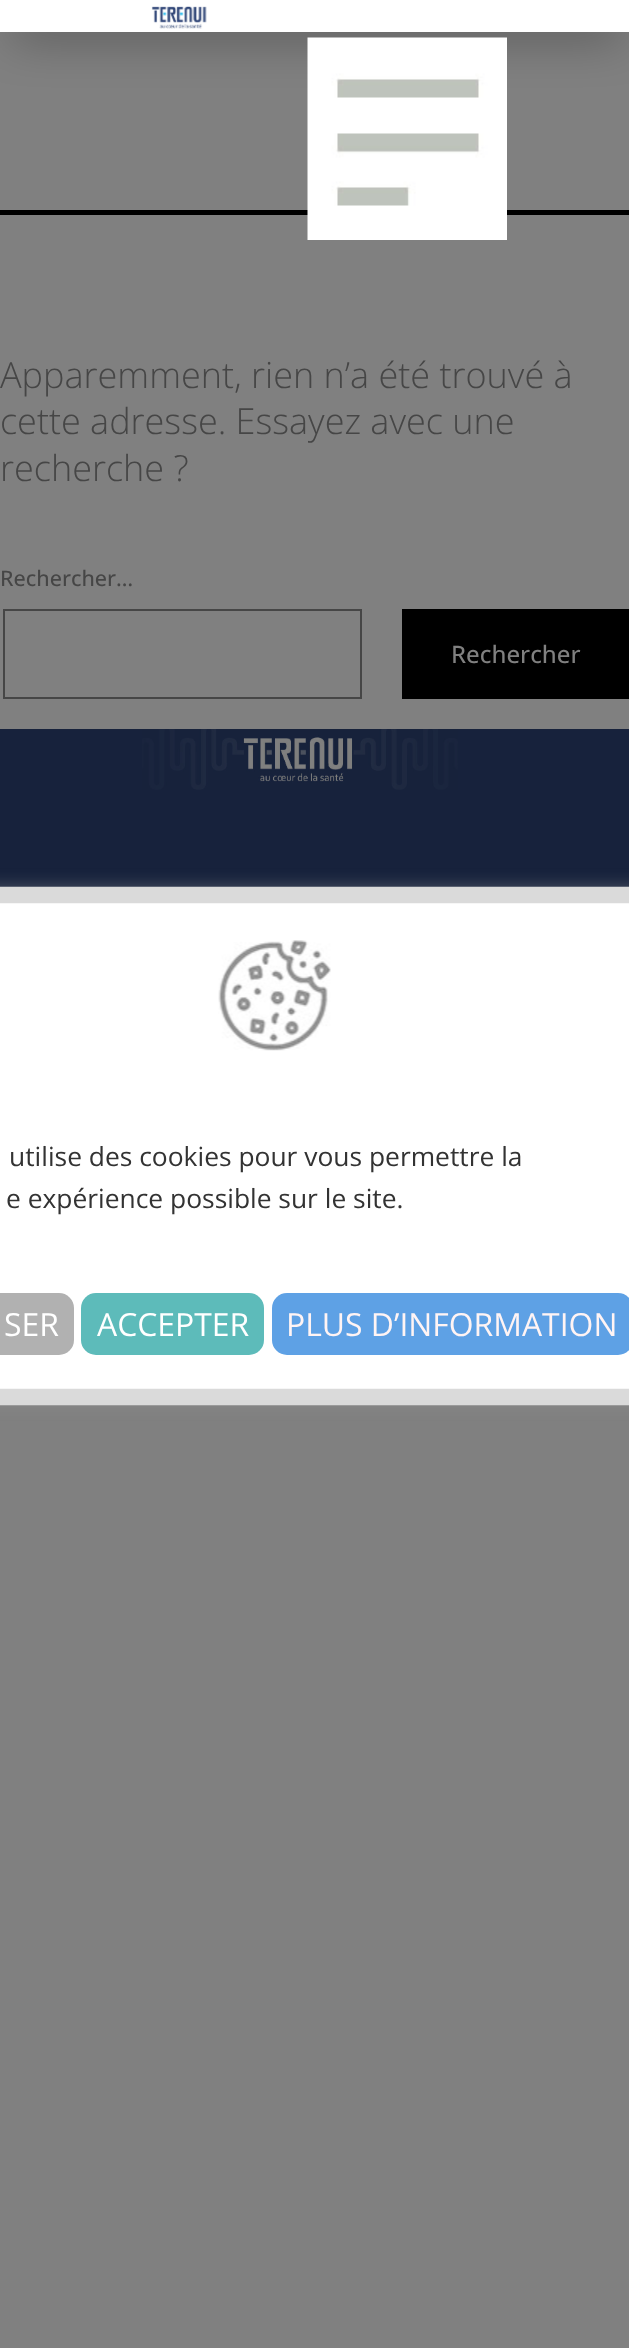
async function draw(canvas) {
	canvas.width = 629;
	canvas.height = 2348;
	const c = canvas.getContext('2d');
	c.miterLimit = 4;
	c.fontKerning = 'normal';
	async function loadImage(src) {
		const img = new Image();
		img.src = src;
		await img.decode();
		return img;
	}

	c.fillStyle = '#808080';
	c.fillRect(0, 0, 629, 2348);
	c.fillStyle = '#000000a6';
	c.filter = 'blur(24px)';
	c.beginPath();
	c.rect(11, 18, 612, 14);
	c.fill();
	c.filter = 'none';
	c.fillStyle = '#fff';
	c.fillRect(0, 0, 629, 32);
	c.drawImage(await loadImage('img1.png'), 151, 6, 56, 23);
	c.fillStyle = '#000';
	c.fillRect(0, 210, 629, 5);
	c.drawImage(await loadImage('img2.png'), 307, 37, 200, 203);
	c.font = '300 36px Open Sans';
	c.fillStyle = '#464646';
	for (const [text, x, y] of [
		['Apparemment, rien n’a été trouvé à', 0, 388],
		['cette adresse. Essayez avec une', 0, 434],
		['recherche ?', 0, 481],
	]) {
		c.fillText(text, x, y);
	}
	c.font = '500 21.5px Open Sans';
	c.fillText('Rechercher…', 0, 586);
	c.strokeStyle = '#464646';
	c.lineWidth = 2;
	c.strokeRect(4, 610, 357, 88);
	c.fillStyle = '#000';
	c.fillRect(402, 609, 227, 90);
	c.font = '500 24px Open Sans';
	c.fillStyle = '#808080';
	c.fillText('Rechercher', 451, 663);
	c.fillStyle = '#17223c';
	c.fillRect(0, 729, 629, 158);
	c.drawImage(await loadImage('img3.png'), 142, 729, 316, 61);
	c.fillStyle = '#acabab4d';
	c.filter = 'blur(7.5px)';
	c.beginPath();
	c.roundRect(-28, 885, 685, 519, 5);
	c.fill();
	c.filter = 'none';
	c.fillStyle = '#fff';
	c.fillRect(0, 903, 629, 486);
	c.beginPath();
	c.moveTo(-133, 895);
	c.lineTo(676, 895);
	c.lineTo(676, 1397);
	c.lineTo(-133, 1397);
	c.closePath();
	c.strokeStyle = '#dadada';
	c.lineWidth = 16.5;
	c.stroke();
	c.drawImage(await loadImage('img4.png'), 218, 940, 113, 111);
	c.font = '26.4px Open Sans';
	c.fillStyle = '#333';
	c.fillText('utilise des cookies pour vous permettre la', 9, 1166);
	c.fillText('e expérience possible sur le site.', 6, 1208);
	c.fillStyle = '#b1b1b1';
	c.beginPath();
	c.roundRect(-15, 1293, 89, 62, 15);
	c.fill();
	c.font = '31.9px Open Sans';
	c.fillStyle = '#fff';
	c.fillText('SER', 4, 1336);
	c.fillStyle = '#5dbbba';
	c.beginPath();
	c.roundRect(81, 1293, 183, 62, 15);
	c.fill();
	c.fillStyle = '#fff';
	c.fillText('ACCEPTER', 97, 1336);
	c.fillStyle = '#5ea1e5';
	c.beginPath();
	c.roundRect(272, 1293, 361, 62, 15);
	c.fill();
	c.fillStyle = '#fff4f4';
	c.fillText('PLUS D’INFORMATION', 286, 1336);
}

draw(document.querySelector('canvas'));
